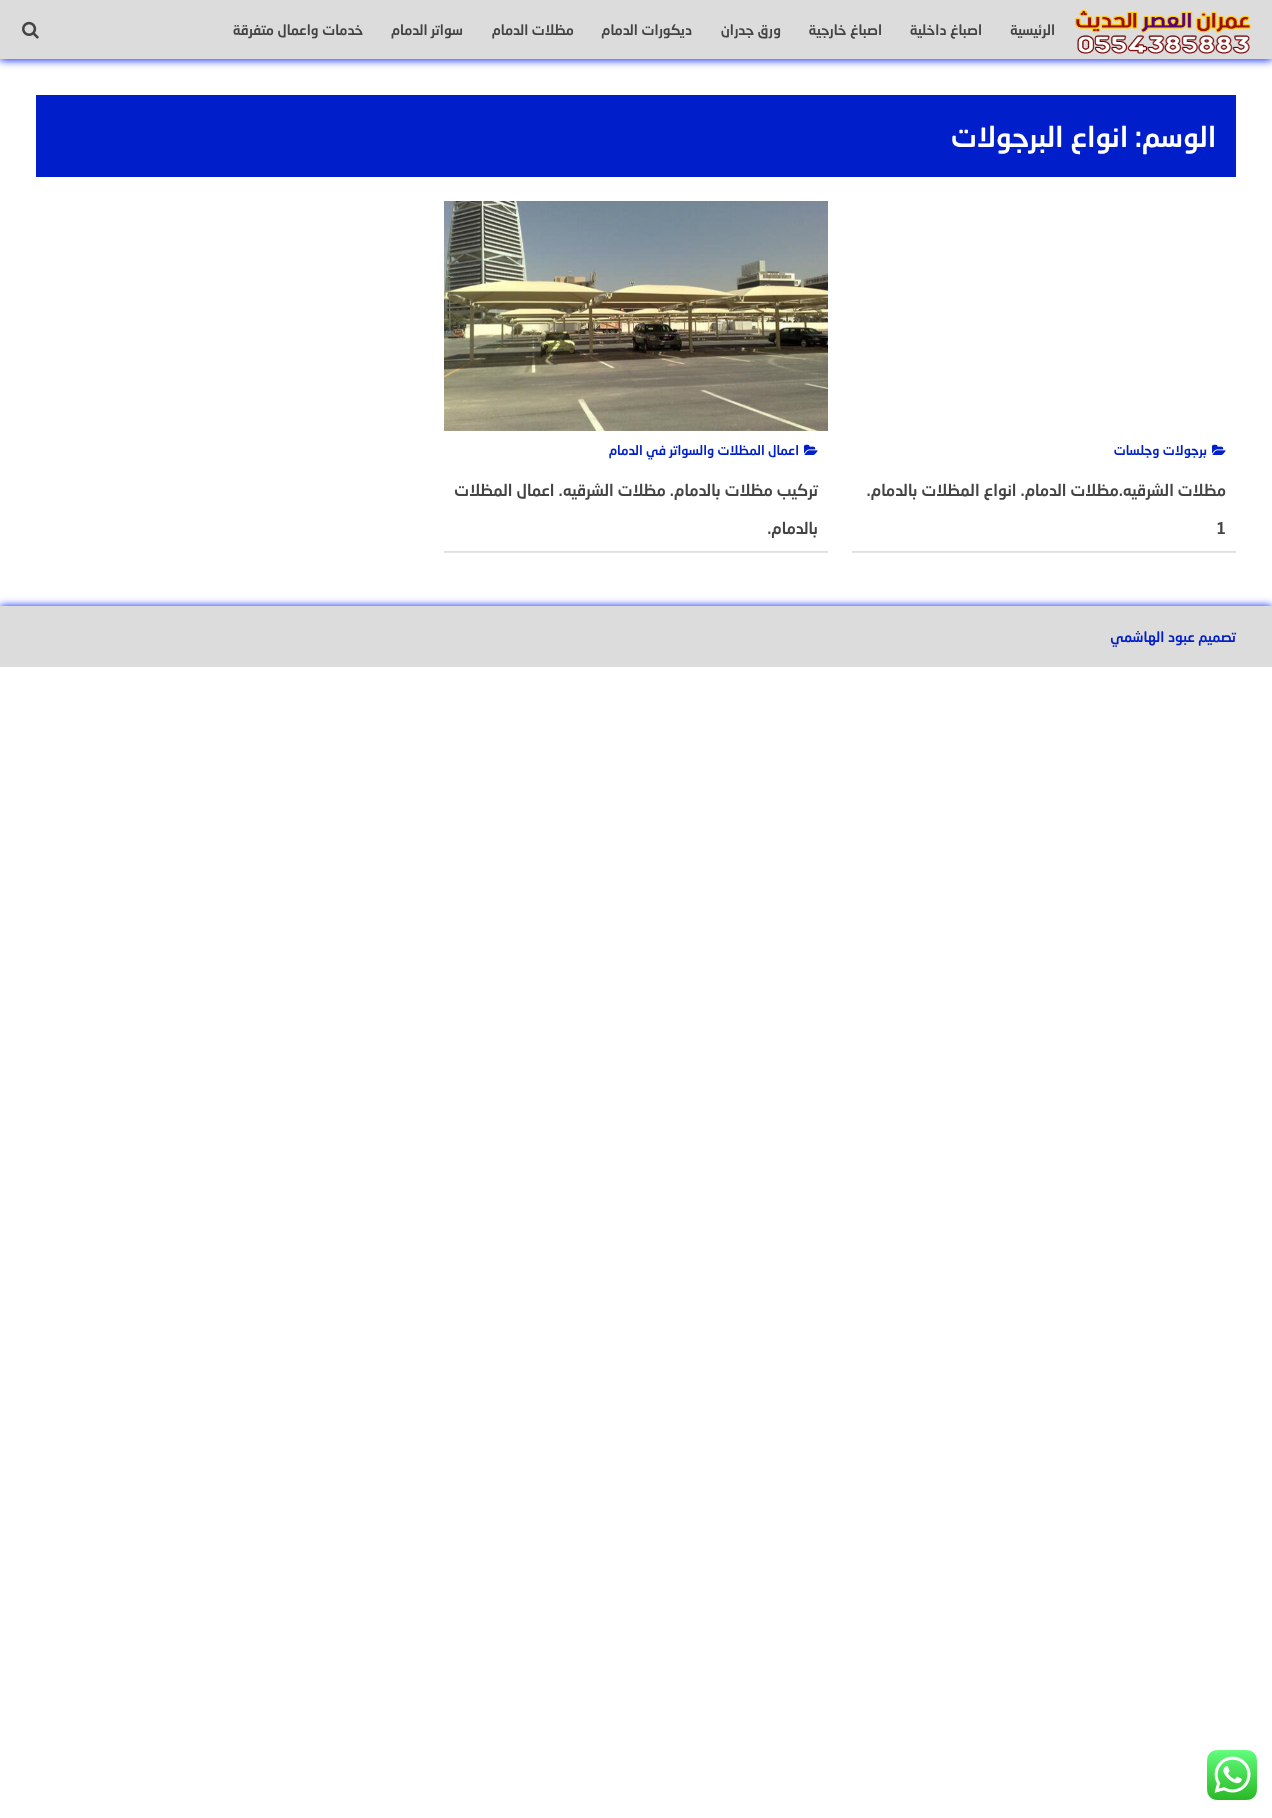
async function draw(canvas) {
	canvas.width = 1272;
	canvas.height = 1818;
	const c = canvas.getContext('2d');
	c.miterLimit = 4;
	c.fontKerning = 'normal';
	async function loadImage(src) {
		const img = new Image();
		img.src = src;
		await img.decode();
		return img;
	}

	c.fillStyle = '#fff';
	c.fillRect(0, 0, 1272, 1818);
	c.fillStyle = '#001fff';
	c.filter = 'blur(4px)';
	c.beginPath();
	c.rect(0, 1, 1272, 59);
	c.fill();
	c.filter = 'none';
	c.fillStyle = '#dcdcdc';
	c.fillRect(0, 0, 1272, 59);
	c.drawImage(await loadImage('img1.png'), 1075, 10, 176, 44);
	c.direction = 'rtl';
	c.font = '500 14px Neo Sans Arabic';
	c.fillStyle = '#444';
	for (const [text, x, y] of [
		['الرئيسية', 1055, 35],
		['اصباغ داخلية', 982, 35],
		['اصباغ خارجية', 882, 35],
		['ورق جدران', 781, 35],
		['ديكورات الدمام', 692, 35],
		['مظلات الدمام', 574, 35],
		['سواتر الدمام', 463, 35],
		['خدمات واعمال متفرقة', 363, 35],
	]) {
		c.fillText(text, x, y);
	}
	c.drawImage(await loadImage('img2.png'), 22, 21, 17, 18);
	c.fillStyle = '#001ec9';
	c.fillRect(36, 95, 1200, 82);
	c.font = '500 28px Neo Sans Arabic';
	c.fillStyle = '#fff';
	c.fillText('الوسم:', 1216, 147);
	c.fillText('انواع البرجولات', 1128, 147);
	c.save();
	c.beginPath();
	c.rect(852, 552, 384, 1);
	c.clip();
	c.fillStyle = '#0000001a';
	c.filter = 'blur(0.5px)';
	c.beginPath();
	c.rect(852, 202, 384, 351);
	c.fill();
	c.filter = 'none';
	c.restore();
	c.fillStyle = '#dedede';
	c.fillRect(852, 551, 384, 1);
	c.drawImage(await loadImage('img3.png'), 1212, 444, 14, 11);
	c.font = '500 13px Neo Sans Arabic';
	c.fillStyle = '#001ec9';
	c.fillText('برجولات وجلسات', 1207, 455);
	c.font = '500 16px Neo Sans Arabic';
	c.fillStyle = '#444';
	c.fillText('مظلات الشرقيه.مظلات الدمام. انواع المظلات بالدمام.', 1226, 496);
	c.direction = 'ltr';
	c.fillText('1', 1216, 534);
	c.save();
	c.beginPath();
	c.rect(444, 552, 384, 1);
	c.clip();
	c.fillStyle = '#0000001a';
	c.filter = 'blur(0.5px)';
	c.beginPath();
	c.rect(444, 202, 384, 351);
	c.fill();
	c.filter = 'none';
	c.restore();
	c.fillStyle = '#dedede';
	c.fillRect(444, 551, 384, 1);
	c.drawImage(await loadImage('img4.png'), 444, 201, 384, 230);
	c.drawImage(await loadImage('img3.png'), 804, 444, 14, 11);
	c.direction = 'rtl';
	c.font = '500 13px Neo Sans Arabic';
	c.fillStyle = '#001ec9';
	c.fillText('اعمال المظلات والسواتر في الدمام', 799, 455);
	c.font = '500 16px Neo Sans Arabic';
	c.fillStyle = '#444';
	c.fillText('تركيب مظلات بالدمام. مظلات الشرقيه. اعمال المظلات', 818, 496);
	c.fillText('بالدمام.', 818, 534);
	c.save();
	c.beginPath();
	c.rect(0, 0, 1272, 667);
	c.clip();
	c.fillStyle = '#001fff';
	c.filter = 'blur(4px)';
	c.beginPath();
	c.rect(0, 606, 1272, 61);
	c.fill();
	c.filter = 'none';
	c.restore();
	c.fillStyle = '#dcdcdc';
	c.fillRect(0, 606, 1272, 61);
	c.font = '500 14px Neo Sans Arabic';
	c.fillStyle = '#001ec9';
	c.fillText('تصميم عبود الهاشمي', 1236, 642);
	c.drawImage(await loadImage('img5.png'), 1207, 1750, 50, 50);
}

draw(document.querySelector('canvas'));
